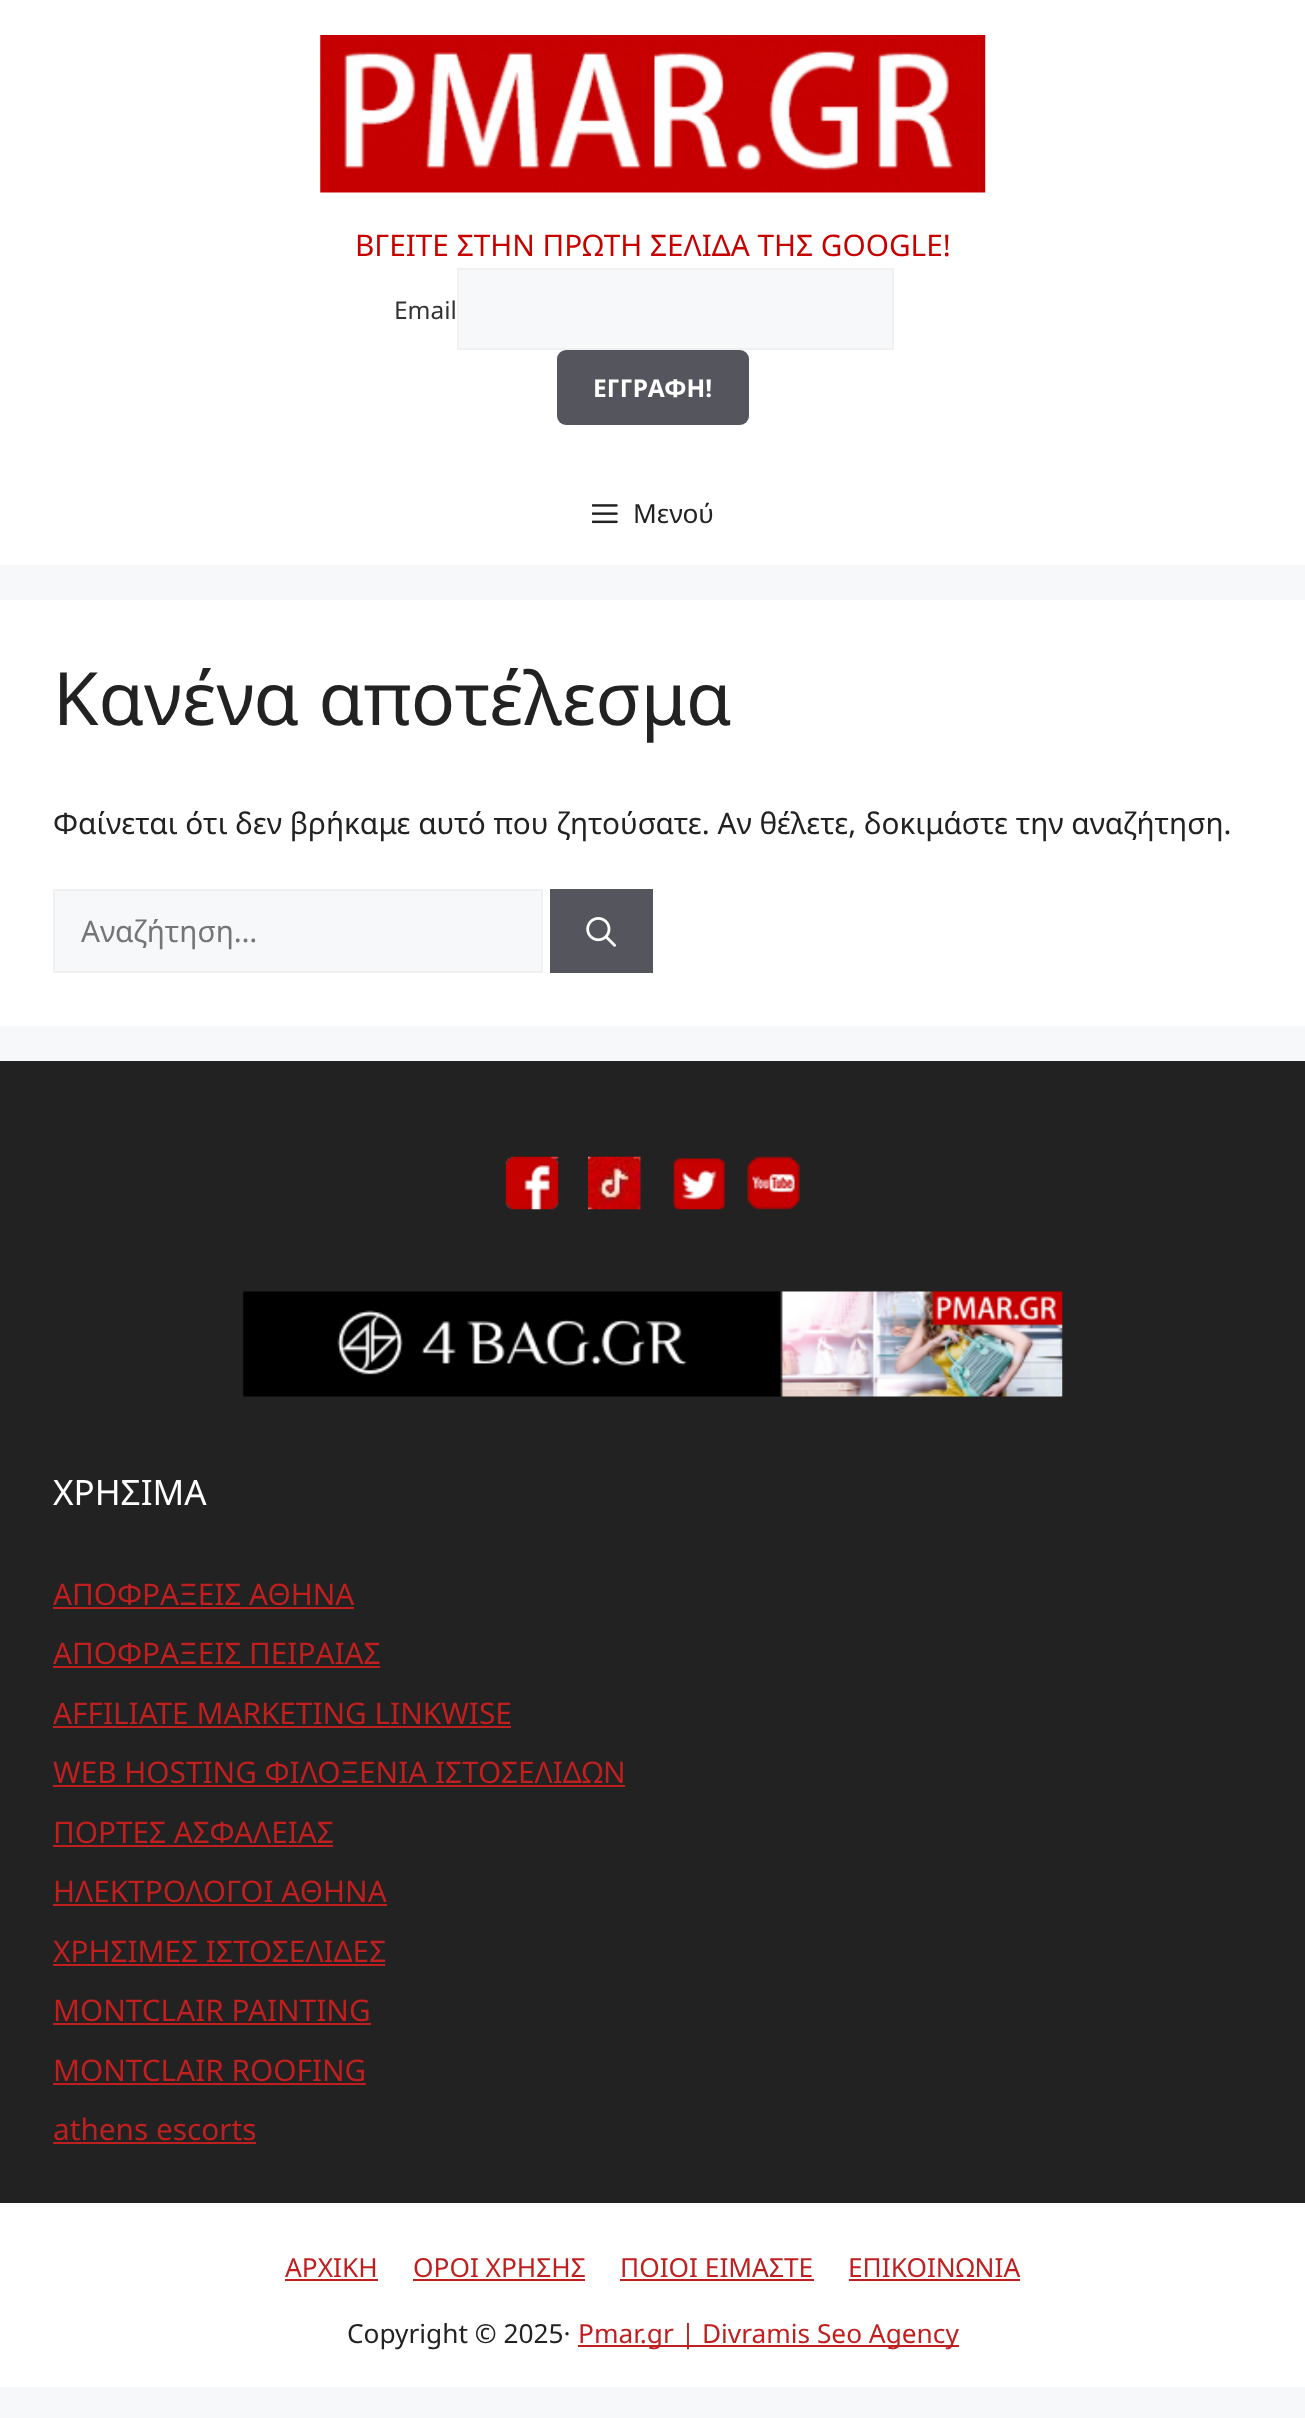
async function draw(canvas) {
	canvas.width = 1305;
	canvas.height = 2418;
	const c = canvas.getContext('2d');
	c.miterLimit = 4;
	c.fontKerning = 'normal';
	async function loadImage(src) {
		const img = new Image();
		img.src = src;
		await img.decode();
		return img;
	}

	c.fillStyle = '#f7f8f9';
	c.fillRect(0, 0, 1305, 2418);
	c.fillStyle = '#fff';
	c.fillRect(0, 0, 1305, 565);
	c.drawImage(await loadImage('img1.png'), 320, 35, 666, 158);
	c.font = '29.75px Noto Sans';
	c.fillStyle = '#c70000';
	c.fillText('ΒΓΕΙΤΕ ΣΤΗΝ ΠΡΩΤΗ ΣΕΛΙΔΑ ΤΗΣ GOOGLE!', 355, 256);
	c.font = '24.5px Noto Sans';
	c.fillStyle = '#333';
	c.fillText('Email', 394, 319);
	c.fillStyle = '#f7f8f9';
	c.beginPath();
	c.rect(458, 269, 435, 80);
	c.fill();
	c.strokeStyle = '#f0f0f0';
	c.lineWidth = 2;
	c.stroke();
	c.fillStyle = '#55555e';
	c.beginPath();
	c.roundRect(557, 350, 192, 75, 9);
	c.fill();
	c.font = 'bold 24.5px Noto Sans';
	c.fillStyle = '#fff';
	c.fillText('ΕΓΓΡΑΦΗ!', 593, 397);
	c.drawImage(await loadImage('img2.png'), 592, 504, 26, 20);
	c.font = '26.25px Noto Sans';
	c.fillStyle = '#222';
	c.fillText('Μενού', 633, 523);
	c.fillStyle = '#fff';
	c.fillRect(0, 600, 1305, 426);
	c.font = '73.5px Noto Sans';
	c.fillStyle = '#222';
	c.fillText('Κανένα αποτέλεσμα', 53, 725);
	c.font = '29.75px Noto Sans';
	c.fillText('Φαίνεται ότι δεν βρήκαμε αυτό που ζητούσατε. Αν θέλετε, δοκιμάστε την αναζήτηση.', 53, 834);
	c.fillStyle = '#f7f8f9';
	c.beginPath();
	c.rect(54, 890, 488, 82);
	c.fill();
	c.stroke();
	c.fillStyle = '#757575';
	c.fillText('Αναζήτηση…', 81, 942);
	c.fillStyle = '#55555e';
	c.fillRect(550, 889, 103, 84);
	c.drawImage(await loadImage('img3.png'), 586, 917, 30, 30);
	c.fillStyle = '#222';
	c.fillRect(0, 1061, 1305, 1142);
	c.drawImage(await loadImage('img4.png'), 505, 1156, 54, 54);
	c.drawImage(await loadImage('img5.png'), 588, 1156, 53, 54);
	c.drawImage(await loadImage('img6.png'), 673, 1158, 52, 52);
	c.drawImage(await loadImage('img7.png'), 747, 1156, 53, 54);
	c.drawImage(await loadImage('img8.png'), 243, 1291, 820, 106);
	c.font = '35px Noto Sans';
	c.fillStyle = '#fff';
	c.fillText('ΧΡΗΣΙΜΑ', 53, 1505);
	c.font = '29.75px Noto Sans';
	c.fillStyle = '#bf1f1f';
	c.fillText('ΑΠΟΦΡΑΞΕΙΣ ΑΘΗΝΑ', 53, 1605);
	c.fillRect(53, 1607, 301, 2);
	c.fillText('ΑΠΟΦΡΑΞΕΙΣ ΠΕΙΡΑΙΑΣ', 53, 1664);
	c.fillRect(53, 1666, 327, 2);
	c.fillText('AFFILIATE MARKETING LINKWISE', 53, 1724);
	c.fillRect(53, 1726, 458, 2);
	c.fillText('WEB HOSTING ΦΙΛΟΞΕΝΙΑ ΙΣΤΟΣΕΛΙΔΩΝ', 53, 1783);
	c.fillRect(53, 1785, 572, 2);
	c.fillText('ΠΟΡΤΕΣ ΑΣΦΑΛΕΙΑΣ', 53, 1843);
	c.fillRect(53, 1845, 280, 2);
	c.fillText('ΗΛΕΚΤΡΟΛΟΓΟΙ ΑΘΗΝΑ', 53, 1902);
	c.fillRect(53, 1904, 334, 2);
	c.fillText('ΧΡΗΣΙΜΕΣ ΙΣΤΟΣΕΛΙΔΕΣ', 53, 1962);
	c.fillRect(53, 1964, 332, 2);
	c.fillText('MONTCLAIR PAINTING', 53, 2021);
	c.fillRect(53, 2023, 318, 2);
	c.fillText('MONTCLAIR ROOFING', 53, 2081);
	c.fillRect(53, 2083, 313, 2);
	c.fillText('athens escorts', 53, 2140);
	c.fillRect(53, 2142, 203, 2);
	c.fillStyle = '#fff';
	c.fillRect(0, 2203, 1305, 184);
	c.font = '26.25px Noto Sans';
	c.fillStyle = '#bf1f1f';
	c.fillText('ΑΡΧΙΚΗ', 285, 2277);
	c.fillRect(285, 2279, 93, 2);
	c.fillText('ΟΡΟΙ ΧΡΗΣΗΣ', 413, 2277);
	c.fillRect(413, 2279, 172, 2);
	c.fillText('ΠΟΙΟΙ ΕΙΜΑΣΤΕ', 620, 2277);
	c.fillRect(620, 2279, 194, 2);
	c.fillText('ΕΠΙΚΟΙΝΩΝΙΑ', 848, 2277);
	c.fillRect(849, 2279, 171, 2);
	c.fillStyle = '#222';
	c.fillText('Copyright © 2025·', 347, 2343);
	c.fillStyle = '#bf1f1f';
	c.fillRect(578, 2345, 381, 2);
	c.fillText('Pmar.gr | Divramis Seo Agency', 578, 2343);
}

draw(document.querySelector('canvas'));
